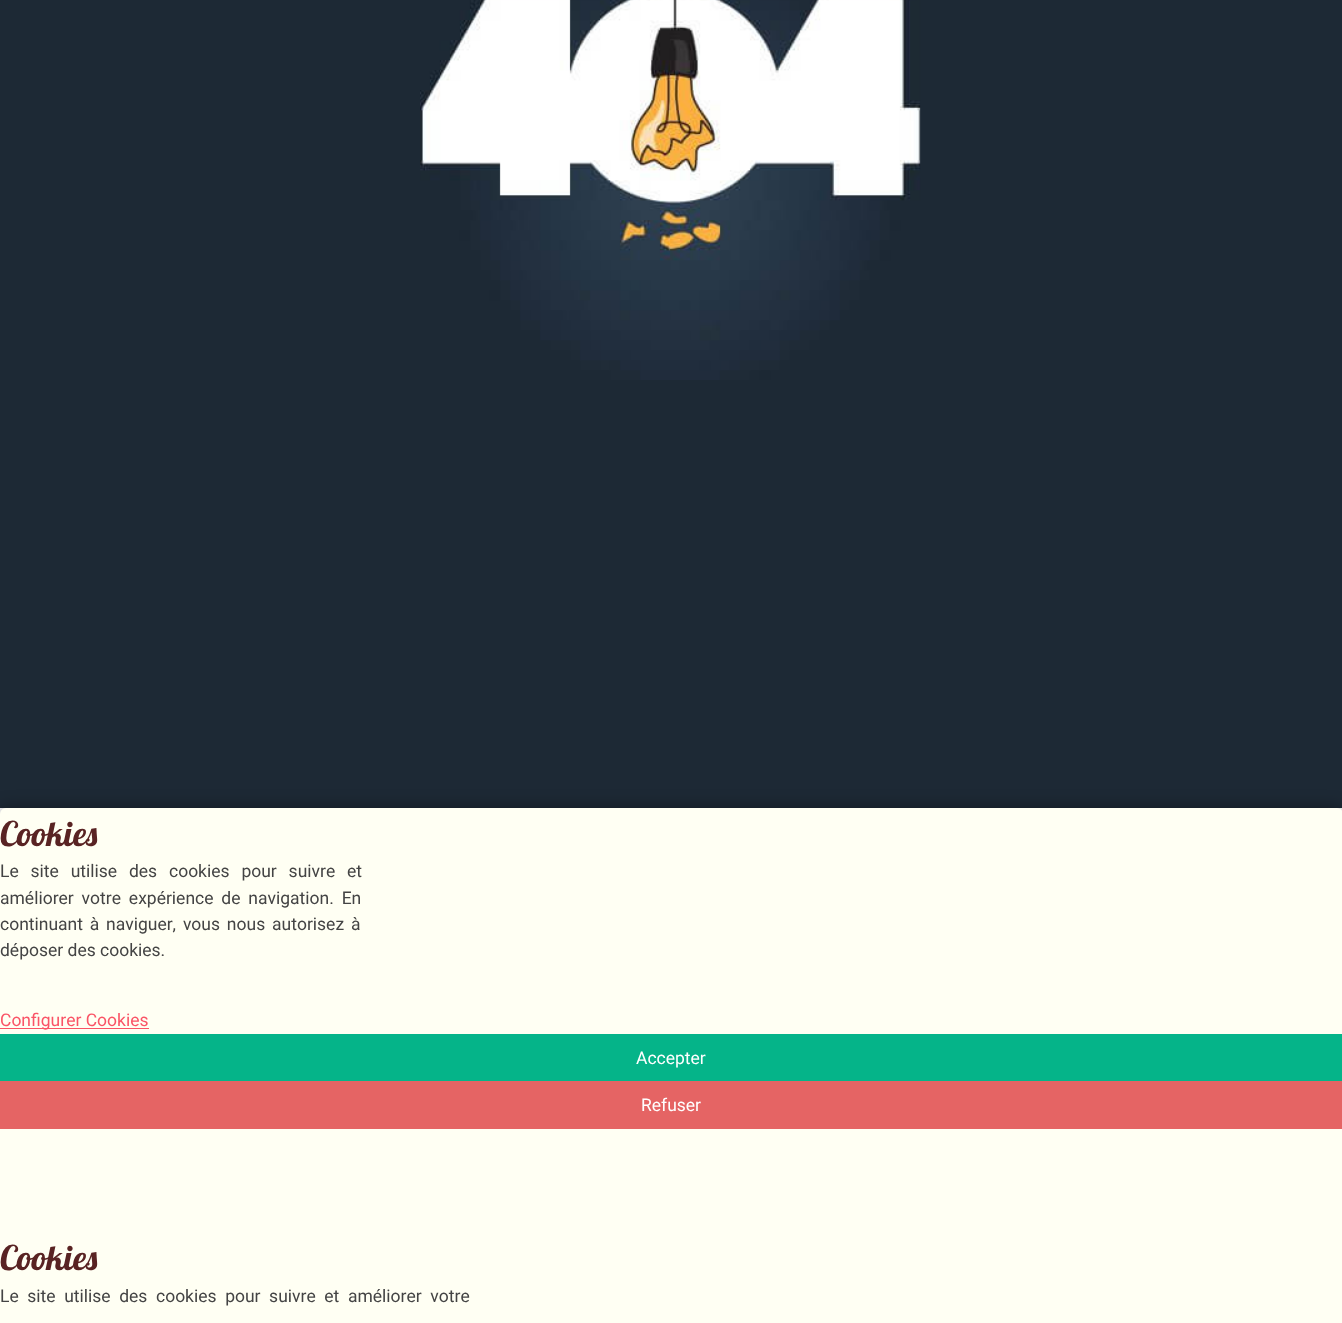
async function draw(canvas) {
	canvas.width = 1342;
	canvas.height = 1323;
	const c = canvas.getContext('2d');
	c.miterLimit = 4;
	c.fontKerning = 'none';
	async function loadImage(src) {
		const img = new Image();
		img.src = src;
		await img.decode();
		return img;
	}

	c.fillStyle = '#fff';
	c.fillRect(0, 0, 1342, 1323);
	c.fillStyle = '#1d2935';
	c.fillRect(0, 0, 1342, 808);
	c.drawImage(await loadImage('img1.png'), 420, 0, 501, 380);
	c.fillStyle = '#0000004d';
	c.filter = 'blur(7.5px)';
	c.beginPath();
	c.roundRect(-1, 806, 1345, 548, 8);
	c.fill();
	c.filter = 'none';
	c.fillStyle = '#fffff3';
	c.beginPath();
	c.roundRect(0, 808, 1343, 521, 6);
	c.fill();
	c.font = '34px Lobster';
	c.fillStyle = '#592323';
	c.fillText('Cookies', 0, 846);
	c.wordSpacing = '7.5px';
	c.font = '17.5px Roboto';
	c.fillStyle = '#444';
	c.fillText('Le site utilise des cookies pour suivre et', 0, 877);
	c.wordSpacing = '3.5px';
	c.fillText('améliorer votre expérience de navigation. En', 0, 904);
	c.wordSpacing = '2.5px';
	c.fillText('continuant à', 0, 930);
	c.fillText('naviguer, vous nous autorisez à', 106, 930);
	c.wordSpacing = '0px';
	c.fillText('déposer des cookies.', 0, 956);
	c.fillStyle = '#fa5466';
	c.fillRect(0, 1028, 149, 1);
	c.fillText('Configurer Cookies', 0, 1026);
	c.fillStyle = '#05b489';
	c.fillRect(0, 1034, 1342, 47);
	c.fillStyle = '#fff';
	c.fillText('Accepter', 636, 1064);
	c.fillStyle = '#e56464';
	c.fillRect(0, 1081, 1342, 48);
	c.fillStyle = '#fff';
	c.fillText('Refuser', 641, 1111);
	c.font = '34px Lobster';
	c.fillStyle = '#592323';
	c.fillText('Cookies', 0, 1270);
	c.wordSpacing = '4.25px';
	c.font = '17.5px Roboto';
	c.fillStyle = '#444';
	c.fillText('Le site utilise des cookies pour suivre et améliorer votre', 0, 1302);
}

draw(document.querySelector('canvas'));
